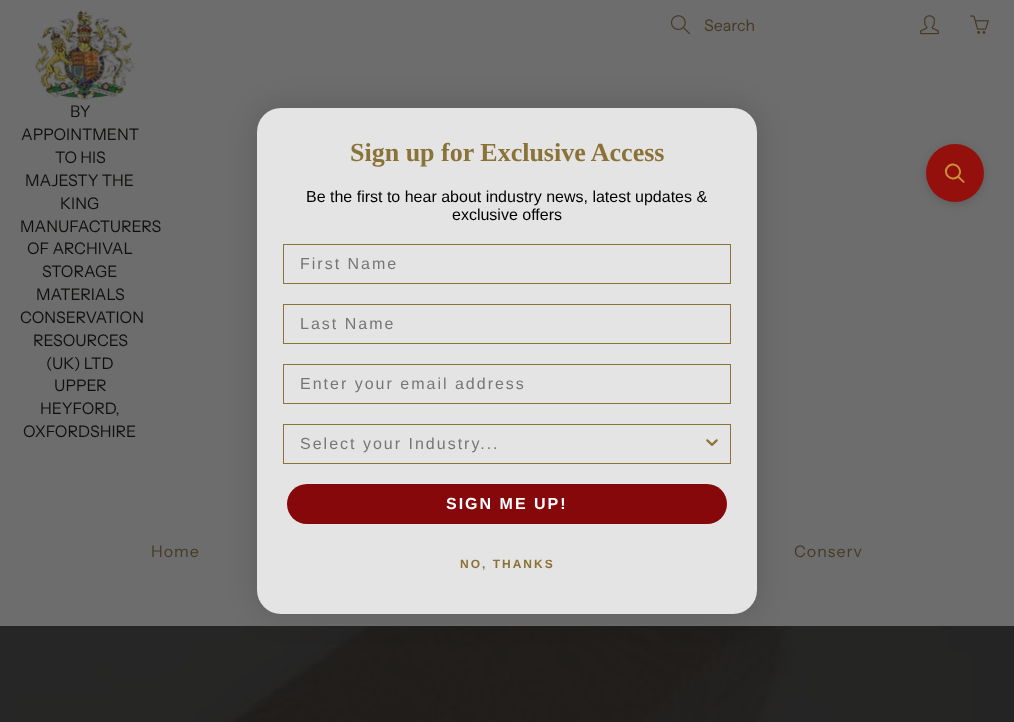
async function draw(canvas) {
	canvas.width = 1014;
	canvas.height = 722;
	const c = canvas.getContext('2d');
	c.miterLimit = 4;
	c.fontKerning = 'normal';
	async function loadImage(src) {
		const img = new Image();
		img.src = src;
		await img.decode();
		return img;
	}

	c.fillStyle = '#6d6d6d';
	c.fillRect(0, 0, 1014, 722);
	c.drawImage(await loadImage('img1.png'), 670, 15, 20, 20);
	c.font = '16px Instrument Sans';
	c.fillStyle = '#453a23';
	c.fillText('Search', 704, 31);
	c.drawImage(await loadImage('img2.png'), 920, 15, 19, 20);
	c.drawImage(await loadImage('img3.png'), 970, 15, 19, 19);
	c.drawImage(await loadImage('img4.png'), 35, 10, 100, 90);
	c.fillStyle = '#0f0f0e';
	for (const [text, x, y] of [
		['BY', 70, 117],
		['APPOINTMENT', 21, 140],
		['TO HIS', 55, 163],
		['MAJESTY THE', 25, 186],
		['KING', 60, 209],
		['MANUFACTURERS', 20, 232],
		['OF ARCHIVAL', 27, 254],
		['STORAGE', 42, 277],
		['MATERIALS', 36, 300],
		['CONSERVATION', 20, 323],
		['RESOURCES', 33, 346],
		['(UK) LTD', 46, 369],
		['UPPER', 54, 391],
		['HEYFORD,', 40, 414],
		['OXFORDSHIRE', 23, 437],
	]) {
		c.fillText(text, x, y);
	}
	c.letterSpacing = '1px';
	c.fillStyle = '#453a23';
	c.fillText('Home', 151, 557);
	c.fillText('Conserv', 794, 557);
	c.drawImage(await loadImage('img5.png'), 0, 626, 1014, 96);
	c.fillStyle = '#00000026';
	c.filter = 'blur(4px)';
	c.beginPath();
	c.roundRect(926, 146, 58, 58, 29);
	c.fill();
	c.filter = 'none';
	c.fillStyle = '#94100d';
	c.beginPath();
	c.arc(955, 173, 29, 0, 2 * Math.PI);
	c.fill();
	c.beginPath();
	c.moveTo(948, 166.5);
	c.bezierCurveTo(954.5, 160, 964.5, 170, 958, 176.5);
	c.bezierCurveTo(951.5, 183, 941.5, 173, 948, 166.5);
	c.closePath();
	c.strokeStyle = '#ca9037';
	c.lineWidth = 2;
	c.stroke();
	c.fillStyle = '#ca9037';
	c.beginPath();
	c.moveTo(957, 177);
	c.lineTo(958.5, 175.5);
	c.lineTo(964.5, 181.5);
	c.bezierCurveTo(965, 182.5, 963.5, 183.5, 963, 182.5);
	c.closePath();
	c.fill();
	c.fillStyle = '#00000026';
	c.filter = 'blur(15px)';
	c.beginPath();
	c.roundRect(257, 108, 500, 506, 24);
	c.fill();
	c.filter = 'none';
	c.fillStyle = '#e4e4e4';
	c.beginPath();
	c.roundRect(257, 108, 500, 506, 24);
	c.fill();
	c.letterSpacing = '0px';
	c.font = 'bold 26px Liberation Serif';
	c.fillStyle = '#8b7337';
	c.fillText('Sign up for Exclusive Access', 350, 161);
	c.font = '16px Liberation Sans';
	c.fillStyle = '#000';
	c.fillText('Be the first to hear about industry news, latest updates &', 306, 202);
	c.fillText('exclusive offers', 452, 220);
	c.strokeStyle = '#8b7337';
	c.lineWidth = 1;
	c.strokeRect(283.5, 244.5, 447, 39);
	c.letterSpacing = '2px';
	c.fillStyle = '#767676';
	c.fillText('First Name', 300, 269);
	c.strokeRect(283.5, 304.5, 447, 39);
	c.fillText('Last Name', 300, 329);
	c.strokeRect(283.5, 364.5, 447, 39);
	c.fillText('Enter your email address', 300, 389);
	c.strokeRect(283.5, 424.5, 447, 39);
	c.fillText('Select your Industry...', 300, 449);
	c.drawImage(await loadImage('img6.png'), 706, 439, 12, 7);
	c.fillStyle = '#86080b';
	c.beginPath();
	c.roundRect(287, 484, 440, 40, 20);
	c.fill();
	c.font = 'bold 16px Liberation Sans';
	c.fillStyle = '#fff';
	c.fillText('SIGN ME UP!', 446, 509);
	c.font = 'bold 12px Liberation Sans';
	c.fillStyle = '#8b7337';
	c.fillText('NO, THANKS', 460, 568);
}

draw(document.querySelector('canvas'));
